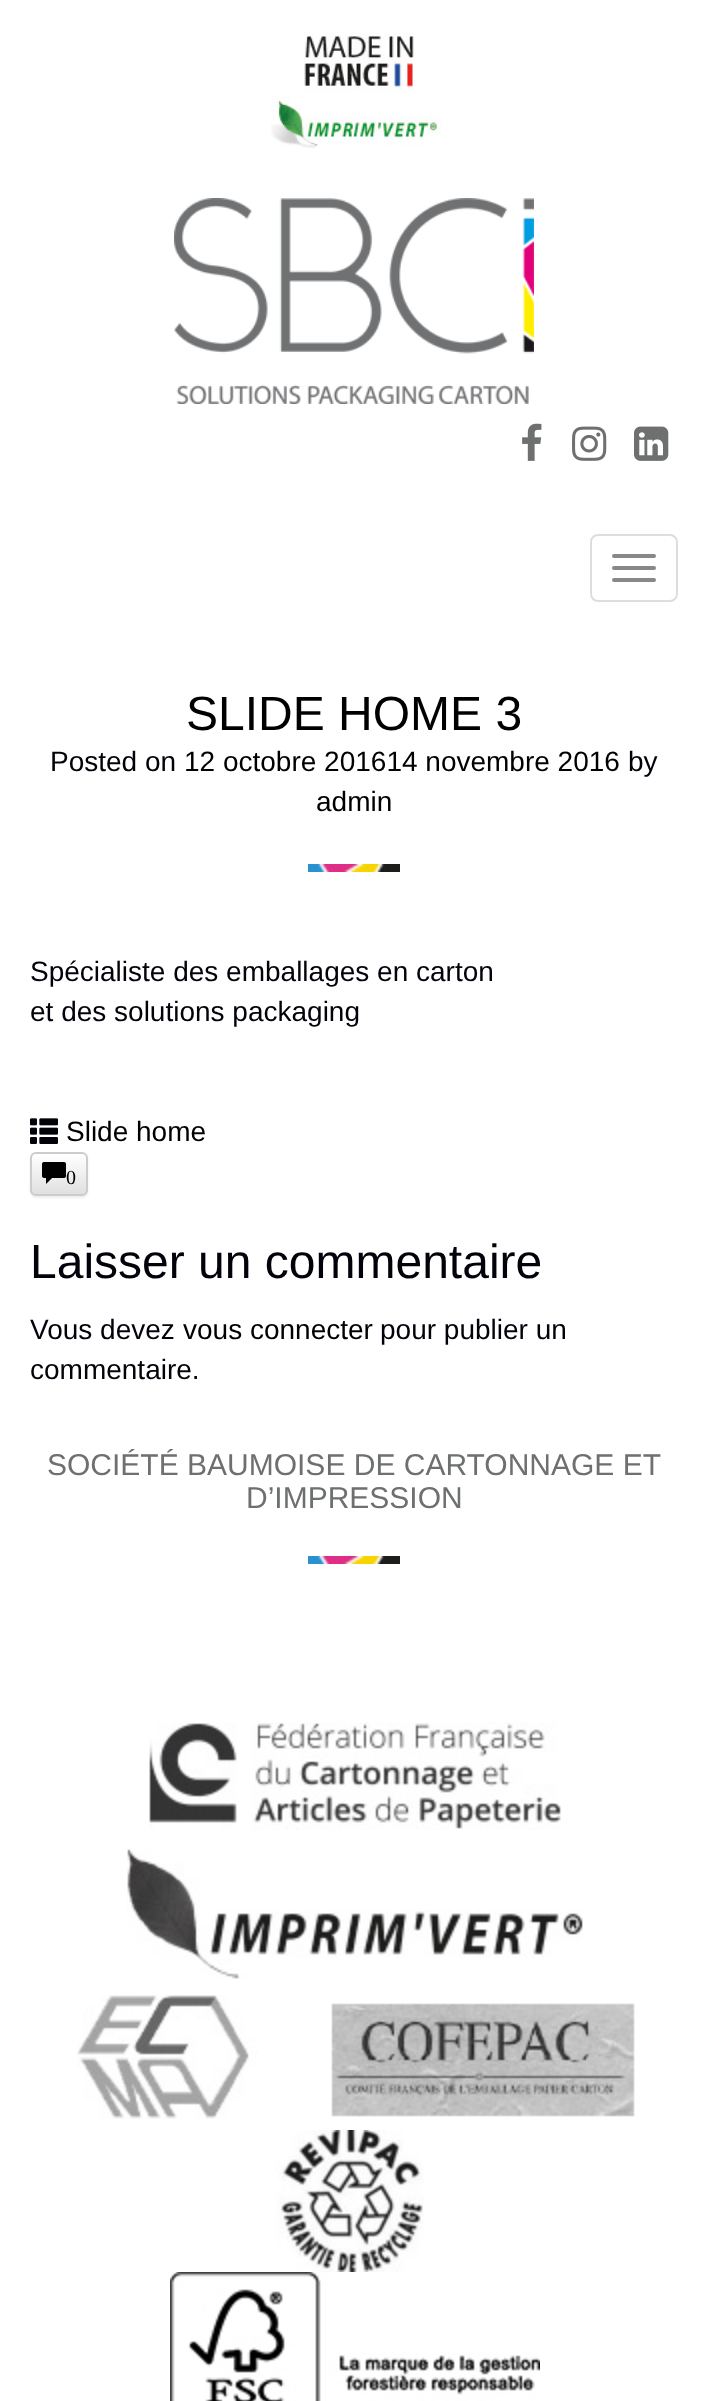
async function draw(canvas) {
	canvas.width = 708;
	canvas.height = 2401;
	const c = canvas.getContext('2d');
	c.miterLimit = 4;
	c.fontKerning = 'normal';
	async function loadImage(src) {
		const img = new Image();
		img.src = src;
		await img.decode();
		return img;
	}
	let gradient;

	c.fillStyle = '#fff';
	c.fillRect(0, 0, 708, 2401);
	c.drawImage(await loadImage('img1.png'), 304, 33, 111, 59);
	c.drawImage(await loadImage('img2.png'), 271, 96, 172, 52);
	c.drawImage(await loadImage('img3.png'), 174, 198, 360, 206);
	c.drawImage(await loadImage('img4.png'), 522, 423, 20, 38);
	c.drawImage(await loadImage('img5.png'), 572, 426, 35, 35);
	c.drawImage(await loadImage('img6.png'), 634, 426, 35, 35);
	c.beginPath();
	c.roundRect(591, 535, 86, 66, 7);
	c.strokeStyle = '#ddd';
	c.lineWidth = 2;
	c.stroke();
	c.fillStyle = '#888';
	c.beginPath();
	c.roundRect(612, 554, 44, 4, 2);
	c.fill();
	c.beginPath();
	c.roundRect(612, 566, 44, 4, 2);
	c.fill();
	c.beginPath();
	c.roundRect(612, 578, 44, 4, 2);
	c.fill();
	c.font = '48px Liberation Sans';
	c.fillStyle = '#000';
	c.fillText('SLIDE HOME 3', 186, 730);
	c.font = '28px Liberation Sans';
	c.fillStyle = '#02020b';
	c.fillText('Posted on', 50, 771);
	c.fillStyle = '#000';
	c.fillText('12 octobre 201614 novembre 2016', 184, 771);
	c.fillStyle = '#02020b';
	c.fillText('by', 628, 771);
	c.fillStyle = '#000';
	c.fillText('admin', 316, 811);
	c.drawImage(await loadImage('img7.png'), 308, 864, 92, 8);
	c.fillStyle = '#02020b';
	c.fillText('Spécialiste des emballages en carton', 30, 981);
	c.fillText('et des solutions packaging', 30, 1021);
	c.drawImage(await loadImage('img8.png'), 30, 1118, 28, 26);
	c.fillStyle = '#000';
	c.fillText('Slide home', 66, 1141);
	c.fillStyle = '#00000012';
	c.filter = 'blur(1px)';
	c.beginPath();
	c.roundRect(30, 1154, 58, 44, 6);
	c.fill();
	c.filter = 'none';
	c.save();
	c.beginPath();
	c.roundRect(30, 1152, 58, 44, 6);
	c.clip();
	gradient = c.createLinearGradient(59, 1154, 59, 1194);
	gradient.addColorStop(0, '#fff');
	gradient.addColorStop(1, '#e0e0e0');
	c.fillStyle = gradient;
	c.fillRect(30, 1154, 58, 40);
	c.restore();
	c.beginPath();
	c.roundRect(31, 1153, 56, 42, 5);
	c.strokeStyle = '#ccc';
	c.stroke();
	c.drawImage(await loadImage('img9.png'), 42, 1162, 24, 22);
	c.font = '20px Liberation Serif';
	c.fillStyle = '#000';
	c.fillText('0', 66, 1184);
	c.font = '48px Liberation Sans';
	c.fillStyle = '#02020b';
	c.fillText('Laisser un commentaire', 30, 1278);
	c.font = '28px Liberation Sans';
	c.fillText('Vous devez', 30, 1339);
	c.fillStyle = '#000';
	c.fillText('vous connecter', 183, 1339);
	c.fillStyle = '#02020b';
	c.fillText('pour publier un', 380, 1339);
	c.fillText('commentaire.', 30, 1379);
	c.font = '30px Liberation Sans';
	c.fillStyle = '#6e706f';
	c.fillText('SOCIÉTÉ BAUMOISE DE CARTONNAGE ET', 47, 1475);
	c.fillText('D’IMPRESSION', 246, 1508);
	c.drawImage(await loadImage('img7.png'), 308, 1556, 92, 8);
	c.drawImage(await loadImage('img10.png'), 149, 1722, 412, 108);
	c.drawImage(await loadImage('img11.png'), 127, 1849, 456, 130);
	c.drawImage(await loadImage('img12.png'), 77, 1995, 181, 124);
	c.drawImage(await loadImage('img13.png'), 331, 2003, 304, 114);
	c.drawImage(await loadImage('img14.png'), 276, 2130, 148, 142);
	c.drawImage(await loadImage('img15.png'), 170, 2272, 370, 129);
}

draw(document.querySelector('canvas'));
